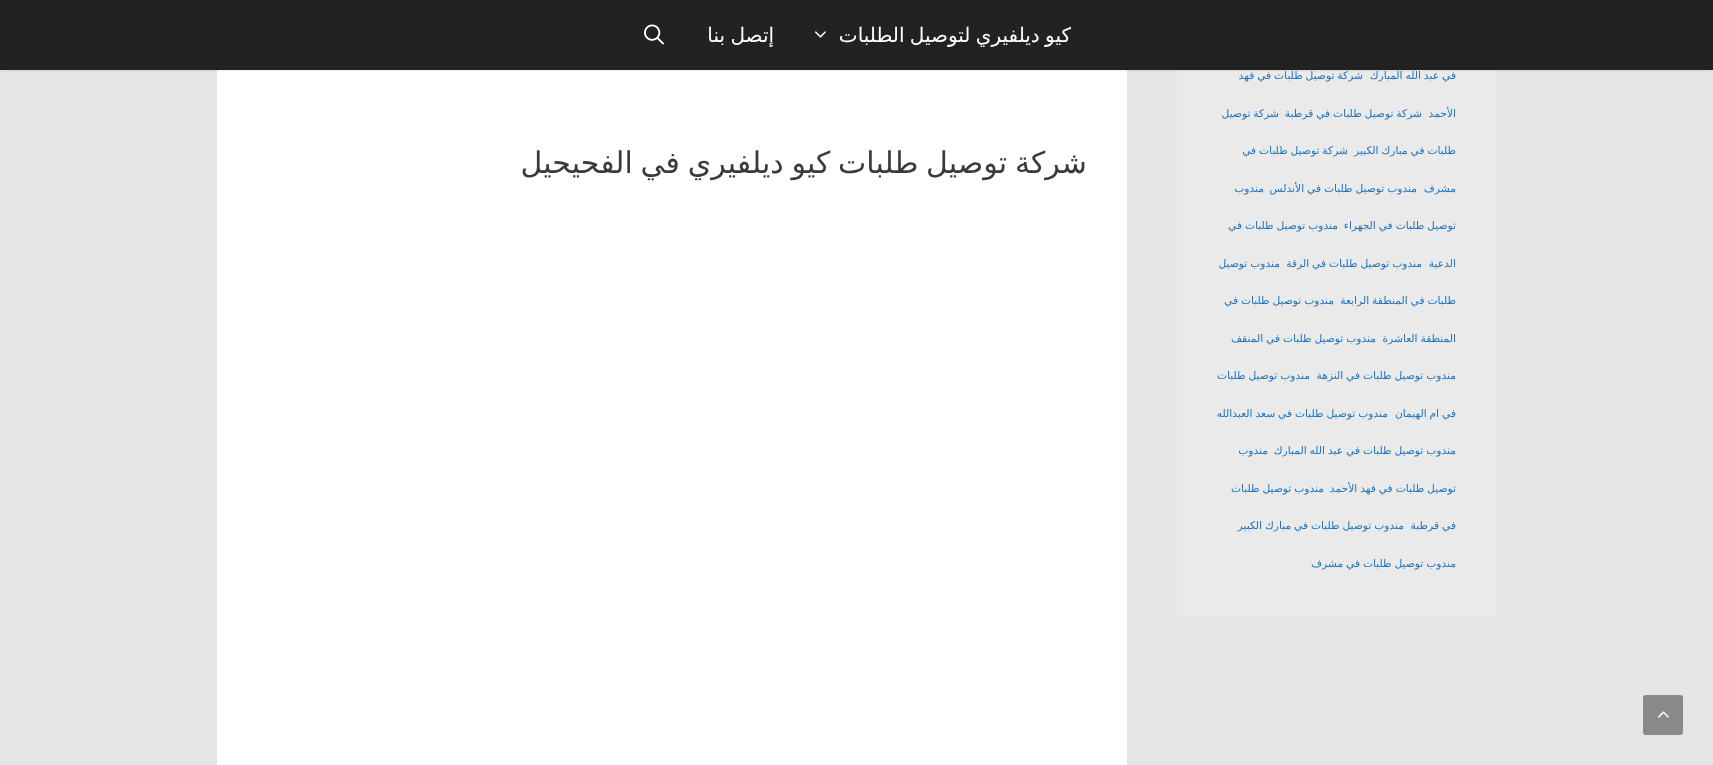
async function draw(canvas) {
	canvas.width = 1713;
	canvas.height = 765;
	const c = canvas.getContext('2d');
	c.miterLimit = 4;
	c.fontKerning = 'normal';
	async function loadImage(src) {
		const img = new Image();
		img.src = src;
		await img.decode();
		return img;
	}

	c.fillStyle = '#e5e5e5';
	c.fillRect(0, 0, 1713, 765);
	c.fillStyle = '#eaeaea';
	c.fillRect(1177, 70, 320, 547);
	c.fillStyle = '#fff';
	c.fillRect(217, 70, 910, 695);
	c.fillStyle = '#00000033';
	c.filter = 'blur(1px)';
	c.beginPath();
	c.rect(2, 4, 1709, 66);
	c.fill();
	c.filter = 'none';
	c.fillStyle = '#222';
	c.fillRect(0, 0, 1713, 70);
	c.wordSpacing = '-1px';
	c.direction = 'rtl';
	c.font = '20px DejaVu Sans';
	c.fillStyle = '#fff';
	c.fillText('كيو ديلفيري لتوصيل الطلبات', 1071, 42);
	c.drawImage(await loadImage('img1.png'), 814, 31, 12, 7);
	c.fillText('إتصل بنا', 774, 42);
	c.drawImage(await loadImage('img2.png'), 644, 24, 20, 21);
	c.wordSpacing = '-0.5px';
	c.font = '10.7px DejaVu Sans';
	c.fillStyle = '#1e73be';
	c.fillText('في عبد الله المبارك', 1456, 79);
	c.fillText('شركة توصيل طلبات في فهد', 1363, 79);
	c.wordSpacing = '0px';
	c.fillText('الأحمد', 1456, 117);
	c.wordSpacing = '-0.5px';
	for (const [text, x, y] of [
		['شركة توصيل طلبات في قرطبة', 1422, 117],
		['شركة توصيل', 1279, 117],
		['طلبات في مبارك الكبير', 1456, 154],
		['شركة توصيل طلبات في', 1348, 154],
	]) {
		c.fillText(text, x, y);
	}
	c.wordSpacing = '0px';
	c.fillText('مشرف', 1456, 192);
	c.wordSpacing = '-0.5px';
	c.fillText('مندوب توصيل طلبات في الأندلس', 1417, 192);
	c.wordSpacing = '0px';
	c.fillText('مندوب', 1264, 192);
	c.wordSpacing = '-0.5px';
	c.fillText('توصيل طلبات في الجهراء', 1456, 229);
	c.fillText('مندوب توصيل طلبات في', 1338, 229);
	c.wordSpacing = '0px';
	c.fillText('الدعية', 1456, 267);
	c.wordSpacing = '-0.5px';
	for (const [text, x, y] of [
		['مندوب توصيل طلبات في الرقة', 1422, 267],
		['مندوب توصيل', 1280, 267],
		['طلبات في المنطقة الرابعة', 1456, 304],
		['مندوب توصيل طلبات في', 1334, 304],
		['المنطقة العاشرة', 1456, 342],
		['مندوب توصيل طلبات في المنقف', 1376, 342],
		['مندوب توصيل طلبات في النزهة', 1456, 379],
		['مندوب توصيل طلبات', 1310, 379],
		['في ام الهيمان', 1456, 417],
		['مندوب توصيل طلبات في سعد العبدالله', 1388, 417],
		['مندوب توصيل طلبات في عبد الله المبارك', 1456, 454],
	]) {
		c.fillText(text, x, y);
	}
	c.wordSpacing = '0px';
	c.fillText('مندوب', 1268, 454);
	c.wordSpacing = '-0.5px';
	for (const [text, x, y] of [
		['توصيل طلبات في فهد الأحمد', 1456, 492],
		['مندوب توصيل طلبات', 1324, 492],
		['في قرطبة', 1456, 529],
		['مندوب توصيل طلبات في مبارك الكبير', 1404, 529],
		['مندوب توصيل طلبات في مشرف', 1456, 567],
	]) {
		c.fillText(text, x, y);
	}
	c.wordSpacing = '-1.75px';
	c.font = '30px DejaVu Sans';
	c.fillStyle = '#3a3a3a';
	c.fillText('شركة توصيل طلبات كيو ديلفيري في الفحيحيل', 1087, 173);
	c.fillStyle = '#898989';
	c.beginPath();
	c.roundRect(1643, 695, 40, 40, 3);
	c.fill();
	c.drawImage(await loadImage('img3.png'), 1658, 711, 11, 7);
}

draw(document.querySelector('canvas'));
